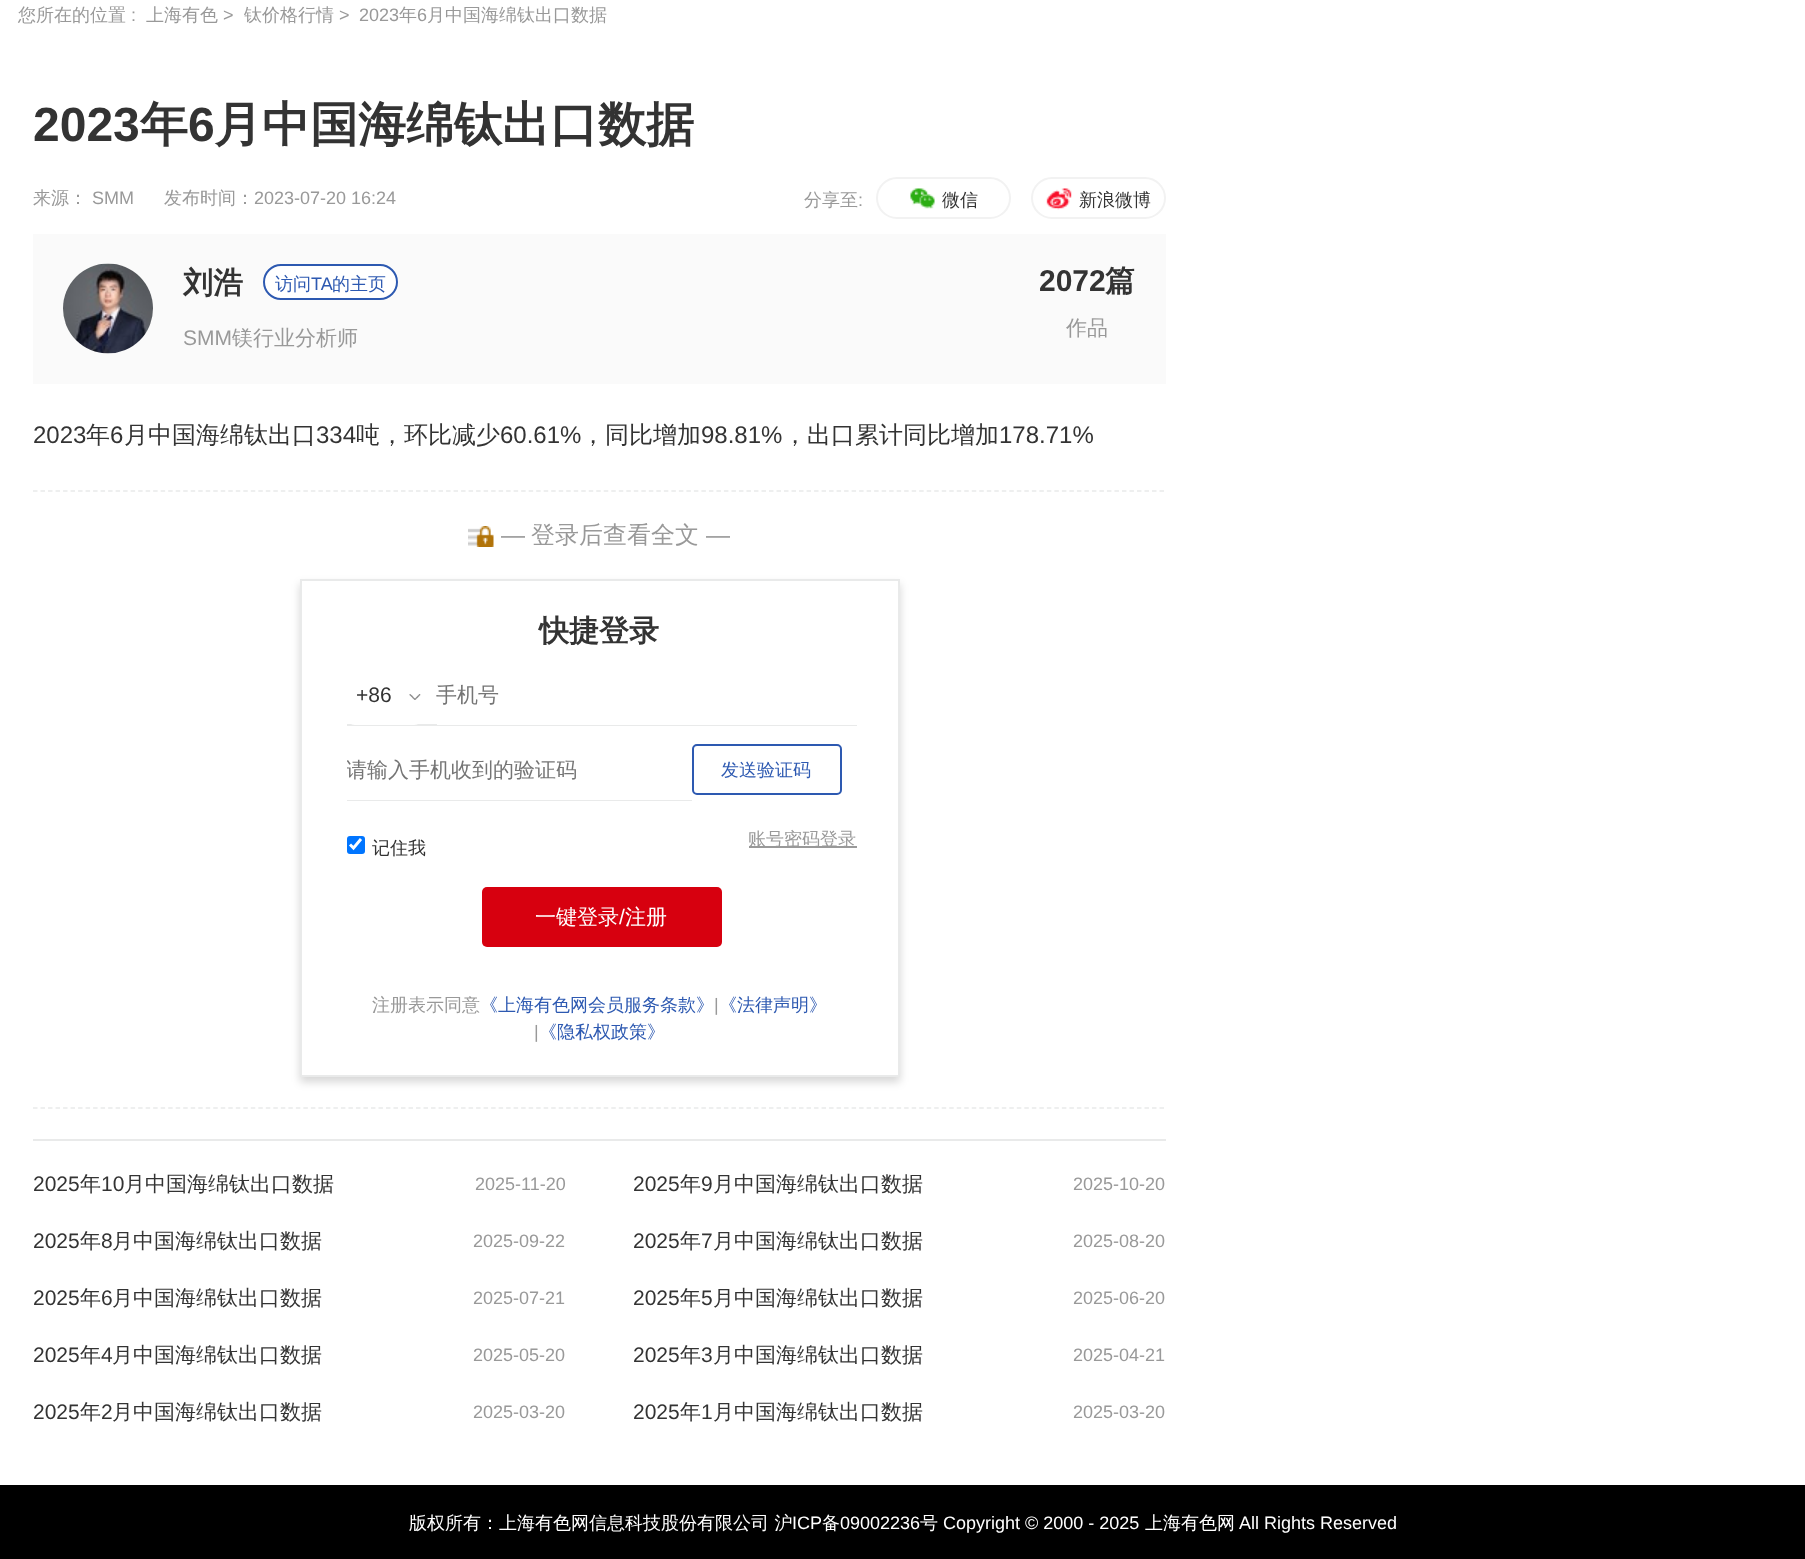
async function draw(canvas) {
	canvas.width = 1805;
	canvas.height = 1559;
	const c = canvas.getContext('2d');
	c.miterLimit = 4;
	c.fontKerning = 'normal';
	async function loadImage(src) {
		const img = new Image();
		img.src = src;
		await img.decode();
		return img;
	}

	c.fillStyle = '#fff';
	c.fillRect(0, 0, 1805, 1559);
	c.font = '500 18px WenQuanYi Zen Hei';
	c.fillStyle = '#999';
	c.fillText('您所在的位置', 18, 21);
	c.font = '18px Liberation Sans';
	c.fillText(':', 131, 21);
	c.font = '500 18px WenQuanYi Zen Hei';
	c.fillText('上海有色', 146, 21);
	c.font = '18px Liberation Sans';
	c.fillText('>', 223, 21);
	c.font = '500 18px WenQuanYi Zen Hei';
	c.fillText('钛价格行情', 244, 21);
	c.font = '18px Liberation Sans';
	c.fillText('>', 339, 21);
	c.fillText('2023', 359, 21);
	c.font = '500 18px WenQuanYi Zen Hei';
	c.fillText('年', 399, 21);
	c.font = '18px Liberation Sans';
	c.fillText('6', 417, 21);
	c.font = '500 18px WenQuanYi Zen Hei';
	c.fillText('月中国海绵钛出口数据', 427, 21);
	c.font = 'bold 48px Liberation Sans';
	c.fillStyle = '#333';
	c.fillText('2023', 33, 141);
	c.font = 'bold 48px WenQuanYi Zen Hei';
	c.fillText('年', 140, 141);
	c.font = 'bold 48px Liberation Sans';
	c.fillText('6', 188, 141);
	c.font = 'bold 48px WenQuanYi Zen Hei';
	c.fillText('月中国海绵钛出口数据', 214, 141);
	c.font = '500 18px WenQuanYi Zen Hei';
	c.fillStyle = '#999';
	c.fillText('来源：', 33, 204);
	c.font = '18px Liberation Sans';
	c.fillText('SMM', 92, 204);
	c.font = '500 18px WenQuanYi Zen Hei';
	c.fillText('发布时间：', 164, 204);
	c.font = '18px Liberation Sans';
	c.fillText('2023-07-20 16:24', 254, 204);
	c.font = '500 18px WenQuanYi Zen Hei';
	c.fillText('分享至', 804, 206);
	c.font = '18px Liberation Sans';
	c.fillText(':', 858, 206);
	c.beginPath();
	c.roundRect(877, 178, 133, 40, 20);
	c.strokeStyle = '#f2f2f2';
	c.lineWidth = 2;
	c.stroke();
	c.drawImage(await loadImage('img1.png'), 910, 188, 25, 21);
	c.font = '500 18px WenQuanYi Zen Hei';
	c.fillStyle = '#333';
	c.fillText('微信', 942, 206);
	c.beginPath();
	c.roundRect(1032, 178, 133, 40, 20);
	c.stroke();
	c.drawImage(await loadImage('img2.png'), 1046, 188, 26, 22);
	c.fillText('新浪微博', 1079, 206);
	c.fillStyle = '#fafafa';
	c.fillRect(33, 234, 1133, 150);
	c.drawImage(await loadImage('img3.png'), 63, 263, 90, 91);
	c.font = 'bold 30px WenQuanYi Zen Hei';
	c.fillStyle = '#333';
	c.fillText('刘浩', 183, 293);
	c.fillStyle = '#fff';
	c.beginPath();
	c.roundRect(264, 265, 133, 34, 17);
	c.fill();
	c.strokeStyle = '#2d59b1';
	c.stroke();
	c.font = '500 18px WenQuanYi Zen Hei';
	c.fillStyle = '#2d59b1';
	c.fillText('访问', 275, 290);
	c.font = '18px Liberation Sans';
	c.fillText('TA', 311, 290);
	c.font = '500 18px WenQuanYi Zen Hei';
	c.fillText('的主页', 332, 290);
	c.font = '21px Liberation Sans';
	c.fillStyle = '#999';
	c.fillText('SMM', 183, 345);
	c.font = '500 21px WenQuanYi Zen Hei';
	c.fillText('镁行业分析师', 232, 345);
	c.font = 'bold 30px Liberation Sans';
	c.fillStyle = '#333';
	c.fillText('2072', 1039, 291);
	c.font = 'bold 30px WenQuanYi Zen Hei';
	c.fillText('篇', 1105, 291);
	c.font = '500 21px WenQuanYi Zen Hei';
	c.fillStyle = '#999';
	c.fillText('作品', 1066, 335);
	c.beginPath();
	c.moveTo(33, 491);
	c.lineTo(1165.5, 491);
	c.strokeStyle = '#e9eaea';
	c.lineWidth = 1.5;
	c.setLineDash([4.5, 3.01]);
	c.stroke();
	c.font = '24px Liberation Sans';
	c.fillStyle = '#333';
	c.fillText('2023', 33, 443);
	c.font = '500 24px WenQuanYi Zen Hei';
	c.fillText('年', 86, 443);
	c.font = '24px Liberation Sans';
	c.fillText('6', 110, 443);
	c.font = '500 24px WenQuanYi Zen Hei';
	c.fillText('月中国海绵钛出口', 124, 443);
	c.font = '24px Liberation Sans';
	c.fillText('334', 316, 443);
	c.font = '500 24px WenQuanYi Zen Hei';
	c.fillText('吨，环比减少', 356, 443);
	c.font = '24px Liberation Sans';
	c.fillText('60.61%', 500, 443);
	c.font = '500 24px WenQuanYi Zen Hei';
	c.fillText('，同比增加', 581, 443);
	c.font = '24px Liberation Sans';
	c.fillText('98.81%', 701, 443);
	c.font = '500 24px WenQuanYi Zen Hei';
	c.fillText('，出口累计同比增加', 783, 443);
	c.font = '24px Liberation Sans';
	c.fillText('178.71%', 999, 443);
	c.drawImage(await loadImage('img4.png'), 468, 526, 26, 21);
	c.fillStyle = '#999';
	c.fillText('—', 501, 543);
	c.font = '500 24px WenQuanYi Zen Hei';
	c.fillText('登录后查看全文', 531, 543);
	c.font = '24px Liberation Sans';
	c.fillText('—', 706, 543);
	c.beginPath();
	c.moveTo(33, 1108);
	c.lineTo(1165.5, 1108);
	c.stroke();
	c.save();
	c.beginPath();
	c.moveTo(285, 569);
	c.lineTo(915, 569);
	c.lineTo(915, 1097);
	c.lineTo(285, 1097);
	c.closePath();
	c.moveTo(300, 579);
	c.lineTo(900, 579);
	c.lineTo(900, 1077);
	c.lineTo(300, 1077);
	c.closePath();
	c.clip('evenodd');
	c.fillStyle = '#00000029';
	c.filter = 'blur(4.5px)';
	c.beginPath();
	c.rect(300, 584, 600, 498);
	c.fill();
	c.filter = 'none';
	c.restore();
	c.lineWidth = 2;
	c.setLineDash([]);
	c.strokeRect(301, 580, 598, 496);
	c.font = 'bold 30px WenQuanYi Zen Hei';
	c.fillStyle = '#333';
	c.fillText('快捷登录', 539, 641);
	c.fillStyle = '#e9eaea';
	c.beginPath();
	c.moveTo(347, 724);
	c.lineTo(347, 726);
	c.lineTo(857, 726);
	c.lineTo(857, 666);
	c.lineTo(856, 666);
	c.lineTo(856, 724);
	c.closePath();
	c.fill();
	c.fillStyle = '#fff';
	c.beginPath();
	c.roundRect(347, 665, 75, 60, 8);
	c.fill();
	c.font = '21px Liberation Sans';
	c.fillStyle = '#333';
	c.fillText('+86', 356, 702);
	c.drawImage(await loadImage('img5.png'), 409, 694, 12, 6);
	c.fillStyle = '#fff';
	c.fillRect(437, 666, 420, 59);
	c.font = '500 21px WenQuanYi Zen Hei';
	c.fillStyle = '#757575';
	c.fillText('手机号', 436, 702);
	c.fillStyle = '#e9eaea';
	c.beginPath();
	c.moveTo(347, 800);
	c.lineTo(347, 801);
	c.lineTo(692, 801);
	c.lineTo(692, 741);
	c.lineTo(692, 800);
	c.closePath();
	c.fill();
	c.save();
	c.beginPath();
	c.rect(347, 758, 330, 27);
	c.clip();
	c.fillStyle = '#757575';
	c.fillText('请输入手机收到的验证码', 346, 777);
	c.restore();
	c.beginPath();
	c.roundRect(693, 745, 148, 49, 4);
	c.strokeStyle = '#2d59b1';
	c.stroke();
	c.font = '500 18px WenQuanYi Zen Hei';
	c.fillStyle = '#2d59b1';
	c.fillText('发送验证码', 721, 776);
	c.fillStyle = '#0075ff';
	c.beginPath();
	c.roundRect(347, 836, 18, 18, 3);
	c.fill();
	c.beginPath();
	c.moveTo(350, 844.5);
	c.lineTo(353.5, 848);
	c.lineTo(361, 839);
	c.strokeStyle = '#fff';
	c.lineWidth = 2.9;
	c.stroke();
	c.fillStyle = '#333';
	c.fillText('记住我', 372, 854);
	c.fillStyle = '#999';
	c.fillRect(749, 846, 108, 2);
	c.fillText('账号密码登录', 748, 845);
	c.fillStyle = '#d7000f';
	c.beginPath();
	c.roundRect(482, 887, 240, 60, 5);
	c.fill();
	c.font = '500 21px WenQuanYi Zen Hei';
	c.fillStyle = '#fff';
	c.fillText('一键登录', 535, 924);
	c.font = '21px Liberation Sans';
	c.fillText('/', 619, 924);
	c.font = '500 21px WenQuanYi Zen Hei';
	c.fillText('注册', 625, 924);
	c.font = '500 18px WenQuanYi Zen Hei';
	c.fillStyle = '#999';
	c.fillText('注册表示同意', 372, 1011);
	c.fillStyle = '#2d59b1';
	c.fillText('《上海有色网会员服务条款》', 480, 1011);
	c.font = '18px Liberation Sans';
	c.fillStyle = '#999';
	c.fillText('|', 714, 1011);
	c.font = '500 18px WenQuanYi Zen Hei';
	c.fillStyle = '#2d59b1';
	c.fillText('《法律声明》', 719, 1011);
	c.font = '18px Liberation Sans';
	c.fillStyle = '#999';
	c.fillText('|', 534, 1038);
	c.font = '500 18px WenQuanYi Zen Hei';
	c.fillStyle = '#2d59b1';
	c.fillText('《隐私权政策》', 539, 1038);
	c.fillStyle = '#e9eaea';
	c.fillRect(33, 1139, 1133, 2);
	c.font = '21px Liberation Sans';
	c.fillStyle = '#333';
	c.fillText('2025', 33, 1191);
	c.font = '500 21px WenQuanYi Zen Hei';
	c.fillText('年', 80, 1191);
	c.font = '21px Liberation Sans';
	c.fillText('10', 101, 1191);
	c.font = '500 21px WenQuanYi Zen Hei';
	c.fillText('月中国海绵钛出口数据', 124, 1191);
	c.font = '18px Liberation Sans';
	c.fillStyle = '#999';
	c.fillText('2025-11-20', 475, 1190);
	c.font = '21px Liberation Sans';
	c.fillStyle = '#333';
	c.fillText('2025', 633, 1191);
	c.font = '500 21px WenQuanYi Zen Hei';
	c.fillText('年', 680, 1191);
	c.font = '21px Liberation Sans';
	c.fillText('9', 701, 1191);
	c.font = '500 21px WenQuanYi Zen Hei';
	c.fillText('月中国海绵钛出口数据', 713, 1191);
	c.font = '18px Liberation Sans';
	c.fillStyle = '#999';
	c.fillText('2025-10-20', 1073, 1190);
	c.font = '21px Liberation Sans';
	c.fillStyle = '#333';
	c.fillText('2025', 33, 1248);
	c.font = '500 21px WenQuanYi Zen Hei';
	c.fillText('年', 80, 1248);
	c.font = '21px Liberation Sans';
	c.fillText('8', 101, 1248);
	c.font = '500 21px WenQuanYi Zen Hei';
	c.fillText('月中国海绵钛出口数据', 112, 1248);
	c.font = '18px Liberation Sans';
	c.fillStyle = '#999';
	c.fillText('2025-09-22', 473, 1247);
	c.font = '21px Liberation Sans';
	c.fillStyle = '#333';
	c.fillText('2025', 633, 1248);
	c.font = '500 21px WenQuanYi Zen Hei';
	c.fillText('年', 680, 1248);
	c.font = '21px Liberation Sans';
	c.fillText('7', 701, 1248);
	c.font = '500 21px WenQuanYi Zen Hei';
	c.fillText('月中国海绵钛出口数据', 713, 1248);
	c.font = '18px Liberation Sans';
	c.fillStyle = '#999';
	c.fillText('2025-08-20', 1073, 1247);
	c.font = '21px Liberation Sans';
	c.fillStyle = '#333';
	c.fillText('2025', 33, 1305);
	c.font = '500 21px WenQuanYi Zen Hei';
	c.fillText('年', 80, 1305);
	c.font = '21px Liberation Sans';
	c.fillText('6', 101, 1305);
	c.font = '500 21px WenQuanYi Zen Hei';
	c.fillText('月中国海绵钛出口数据', 112, 1305);
	c.font = '18px Liberation Sans';
	c.fillStyle = '#999';
	c.fillText('2025-07-21', 473, 1304);
	c.font = '21px Liberation Sans';
	c.fillStyle = '#333';
	c.fillText('2025', 633, 1305);
	c.font = '500 21px WenQuanYi Zen Hei';
	c.fillText('年', 680, 1305);
	c.font = '21px Liberation Sans';
	c.fillText('5', 701, 1305);
	c.font = '500 21px WenQuanYi Zen Hei';
	c.fillText('月中国海绵钛出口数据', 713, 1305);
	c.font = '18px Liberation Sans';
	c.fillStyle = '#999';
	c.fillText('2025-06-20', 1073, 1304);
	c.font = '21px Liberation Sans';
	c.fillStyle = '#333';
	c.fillText('2025', 33, 1362);
	c.font = '500 21px WenQuanYi Zen Hei';
	c.fillText('年', 80, 1362);
	c.font = '21px Liberation Sans';
	c.fillText('4', 101, 1362);
	c.font = '500 21px WenQuanYi Zen Hei';
	c.fillText('月中国海绵钛出口数据', 112, 1362);
	c.font = '18px Liberation Sans';
	c.fillStyle = '#999';
	c.fillText('2025-05-20', 473, 1361);
	c.font = '21px Liberation Sans';
	c.fillStyle = '#333';
	c.fillText('2025', 633, 1362);
	c.font = '500 21px WenQuanYi Zen Hei';
	c.fillText('年', 680, 1362);
	c.font = '21px Liberation Sans';
	c.fillText('3', 701, 1362);
	c.font = '500 21px WenQuanYi Zen Hei';
	c.fillText('月中国海绵钛出口数据', 713, 1362);
	c.font = '18px Liberation Sans';
	c.fillStyle = '#999';
	c.fillText('2025-04-21', 1073, 1361);
	c.font = '21px Liberation Sans';
	c.fillStyle = '#333';
	c.fillText('2025', 33, 1419);
	c.font = '500 21px WenQuanYi Zen Hei';
	c.fillText('年', 80, 1419);
	c.font = '21px Liberation Sans';
	c.fillText('2', 101, 1419);
	c.font = '500 21px WenQuanYi Zen Hei';
	c.fillText('月中国海绵钛出口数据', 112, 1419);
	c.font = '18px Liberation Sans';
	c.fillStyle = '#999';
	c.fillText('2025-03-20', 473, 1418);
	c.font = '21px Liberation Sans';
	c.fillStyle = '#333';
	c.fillText('2025', 633, 1419);
	c.font = '500 21px WenQuanYi Zen Hei';
	c.fillText('年', 680, 1419);
	c.font = '21px Liberation Sans';
	c.fillText('1', 701, 1419);
	c.font = '500 21px WenQuanYi Zen Hei';
	c.fillText('月中国海绵钛出口数据', 713, 1419);
	c.font = '18px Liberation Sans';
	c.fillStyle = '#999';
	c.fillText('2025-03-20', 1073, 1418);
	c.fillStyle = '#000';
	c.fillRect(0, 1485, 1805, 74);
	c.font = '500 18px WenQuanYi Zen Hei';
	c.fillStyle = '#fff';
	c.fillText('版权所有：上海有色网信息科技股份有限公司 沪', 409, 1529);
	c.font = '18px Liberation Sans';
	c.fillText('ICP', 792, 1529);
	c.font = '500 18px WenQuanYi Zen Hei';
	c.fillText('备', 822, 1529);
	c.font = '18px Liberation Sans';
	c.fillText('09002236', 840, 1529);
	c.font = '500 18px WenQuanYi Zen Hei';
	c.fillText('号', 920, 1529);
	c.font = '18px Liberation Sans';
	c.fillText('Copyright © 2000 - 2025', 943, 1529);
	c.font = '500 18px WenQuanYi Zen Hei';
	c.fillText('上海有色网', 1145, 1529);
	c.font = '18px Liberation Sans';
	c.fillText('All Rights Reserved', 1239, 1529);
}

draw(document.querySelector('canvas'));
